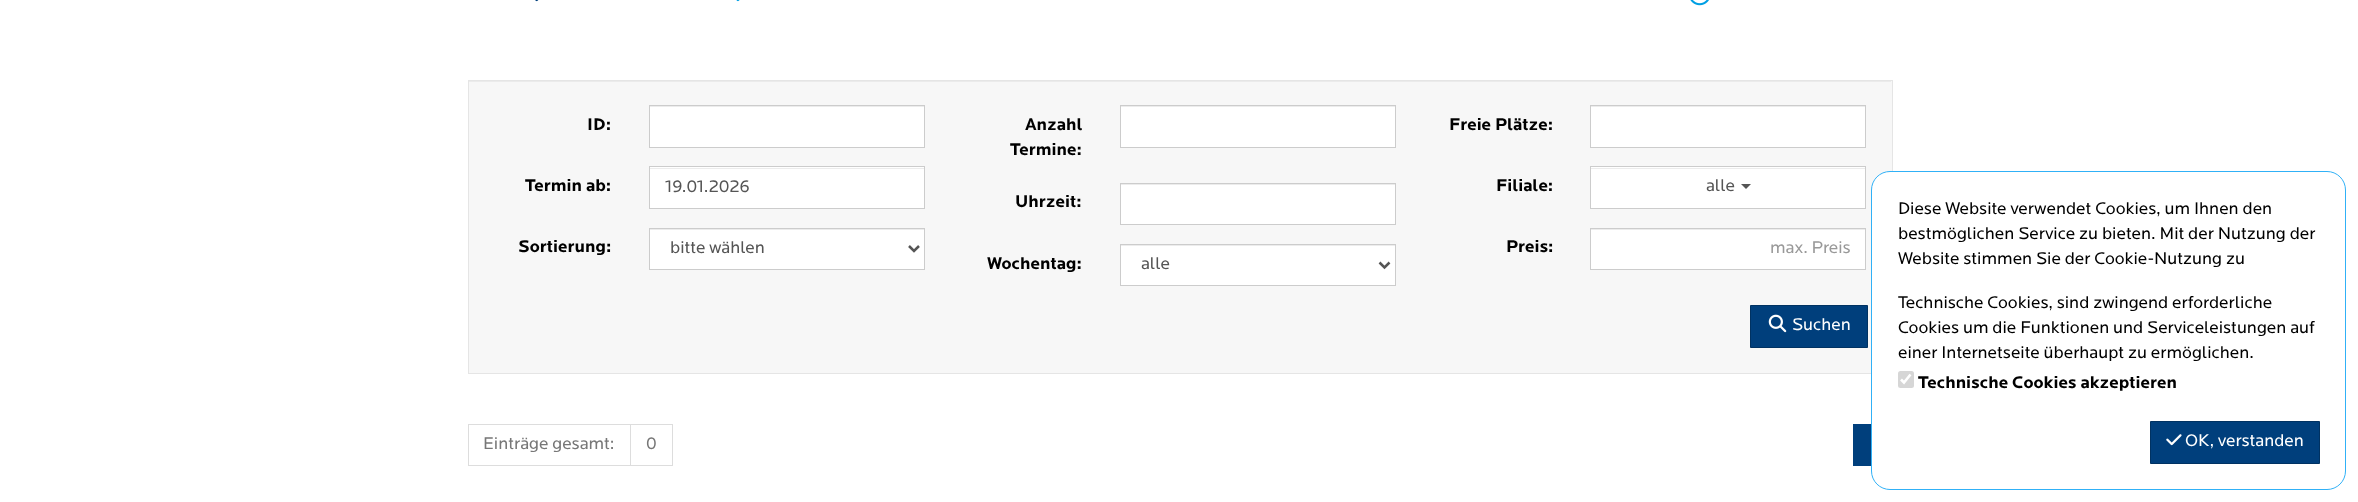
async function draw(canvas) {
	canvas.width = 2358;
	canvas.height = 502;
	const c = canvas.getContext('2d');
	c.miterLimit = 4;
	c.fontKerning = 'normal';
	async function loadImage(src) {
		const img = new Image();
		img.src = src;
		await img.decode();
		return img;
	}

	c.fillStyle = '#fff';
	c.fillRect(0, 0, 2358, 502);
	c.drawImage(await loadImage('img1.png'), 535, 0, 4, 2);
	c.drawImage(await loadImage('img2.png'), 736, 0, 4, 2);
	c.drawImage(await loadImage('img3.png'), 1690, 0, 19, 6);
	c.fillStyle = '#f7f7f7';
	c.fillRect(469, 81, 1423, 292);
	c.fillStyle = '#ebebeb';
	c.fillRect(469, 81, 1422, 1);
	c.strokeStyle = '#e5e5e5';
	c.strokeRect(468.5, 80.5, 1424, 293);
	c.font = 'bold 17.5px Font';
	c.fillStyle = '#000';
	c.fillText('ID:', 587, 130);
	c.fillStyle = '#fff';
	c.fillRect(650, 107, 274, 40);
	c.fillStyle = '#ececec';
	c.fillRect(650, 106, 274, 1);
	c.strokeStyle = '#ccc';
	c.strokeRect(649.5, 105.5, 275, 42);
	c.fillStyle = '#000';
	c.fillText('Termin ab:', 525, 191);
	c.fillStyle = '#fff';
	c.fillRect(650, 167, 274, 41);
	c.fillStyle = '#ececec';
	c.fillRect(650, 168, 274, 1);
	c.strokeRect(649.5, 166.5, 275, 42);
	c.font = '17.5px Font';
	c.fillStyle = '#555';
	c.fillText('19.01.2026', 665, 192);
	c.font = 'bold 17.5px Font';
	c.fillStyle = '#000';
	c.fillText('Sortierung:', 518, 252);
	c.fillStyle = '#fff';
	c.fillRect(650, 230, 274, 39);
	c.fillStyle = '#ececec';
	c.fillRect(650, 229, 274, 1);
	c.strokeRect(649.5, 228.5, 275, 41);
	c.beginPath();
	c.moveTo(909, 246);
	c.lineTo(914, 251);
	c.lineTo(919, 246);
	c.strokeStyle = '#555';
	c.lineWidth = 2.5;
	c.stroke();
	c.font = '17.5px Font';
	c.fillStyle = '#555';
	c.fillText('bitte wählen', 670, 253);
	c.font = 'bold 17.5px Font';
	c.fillStyle = '#000';
	c.fillText('Anzahl', 1025, 130);
	c.fillText('Termine:', 1010, 155);
	c.fillStyle = '#fff';
	c.fillRect(1121, 107, 274, 40);
	c.fillStyle = '#ececec';
	c.fillRect(1121, 106, 274, 1);
	c.strokeStyle = '#ccc';
	c.lineWidth = 1;
	c.strokeRect(1120.5, 105.5, 275, 42);
	c.fillStyle = '#000';
	c.fillText('Uhrzeit:', 1015, 207);
	c.fillStyle = '#fff';
	c.fillRect(1121, 185, 274, 39);
	c.fillStyle = '#ececec';
	c.fillRect(1121, 184, 274, 1);
	c.strokeRect(1120.5, 183.5, 275, 41);
	c.fillStyle = '#000';
	c.fillText('Wochentag:', 987, 269);
	c.fillStyle = '#fff';
	c.fillRect(1121, 246, 274, 39);
	c.fillStyle = '#ececec';
	c.fillRect(1121, 245, 274, 1);
	c.strokeRect(1120.5, 244.5, 275, 41);
	c.beginPath();
	c.moveTo(1379.5, 262.5);
	c.lineTo(1384.5, 267.5);
	c.lineTo(1389.5, 262.5);
	c.strokeStyle = '#555';
	c.lineWidth = 2.5;
	c.stroke();
	c.font = '17.5px Font';
	c.fillStyle = '#555';
	c.fillText('alle', 1141, 269);
	c.font = 'bold 17.5px Font';
	c.fillStyle = '#000';
	c.fillText('Freie Plätze:', 1449, 130);
	c.fillStyle = '#fff';
	c.fillRect(1591, 107, 274, 40);
	c.fillStyle = '#ececec';
	c.fillRect(1591, 106, 274, 1);
	c.strokeStyle = '#ccc';
	c.lineWidth = 1;
	c.strokeRect(1590.5, 105.5, 275, 42);
	c.fillStyle = '#000';
	c.fillText('Filiale:', 1496, 191);
	c.fillStyle = '#fff';
	c.fillRect(1591, 167, 274, 41);
	c.fillStyle = '#ececec';
	c.fillRect(1591, 168, 274, 1);
	c.strokeRect(1590.5, 166.5, 275, 42);
	c.font = '17.5px Font';
	c.fillStyle = '#555';
	c.fillText('alle', 1706, 191);
	c.beginPath();
	c.moveTo(1741, 184);
	c.lineTo(1751, 184);
	c.lineTo(1746, 189);
	c.closePath();
	c.fill();
	c.font = 'bold 17.5px Font';
	c.fillStyle = '#000';
	c.fillText('Preis:', 1506, 252);
	c.fillStyle = '#fff';
	c.fillRect(1591, 230, 274, 39);
	c.fillStyle = '#ececec';
	c.fillRect(1591, 229, 274, 1);
	c.strokeRect(1590.5, 228.5, 275, 41);
	c.font = '17.5px Font';
	c.fillStyle = '#999';
	c.fillText('max. Preis', 1770, 253);
	c.fillStyle = '#003f7c';
	c.beginPath();
	c.rect(1750.5, 305.5, 117, 42);
	c.fill();
	c.strokeStyle = '#003262';
	c.stroke();
	c.drawImage(await loadImage('img4.png'), 1768, 314, 19, 19);
	c.fillStyle = '#fff';
	c.fillText('Suchen', 1792, 330);
	c.strokeStyle = '#ddd';
	c.strokeRect(468.5, 424.5, 162, 41);
	c.fillStyle = '#777';
	c.fillText('Einträge gesamt:', 483, 449);
	c.strokeRect(630.5, 424.5, 42, 41);
	c.fillText('0', 646, 449);
	c.fillStyle = '#003f7c';
	c.fillRect(1853, 424, 18, 42);
	c.fillStyle = '#fff';
	c.beginPath();
	c.roundRect(1871.5, 171.5, 474, 318, 18.5);
	c.fill();
	c.strokeStyle = '#30b1f7';
	c.stroke();
	c.fillStyle = '#000';
	for (const [text, x, y] of [
		['Diese Website verwendet Cookies, um Ihnen den', 1898, 214],
		['bestmöglichen Service zu bieten. Mit der Nutzung der', 1898, 239],
		['Website stimmen Sie der Cookie-Nutzung zu', 1898, 264],
		['Technische Cookies, sind zwingend erforderliche', 1898, 308],
		['Cookies um die Funktionen und Serviceleistungen auf', 1898, 333],
		['einer Internetseite überhaupt zu ermöglichen.', 1898, 358],
	]) {
		c.fillText(text, x, y);
	}
	c.fillStyle = '#d6d6d6';
	c.beginPath();
	c.roundRect(1898, 371, 16, 17, 2.5);
	c.fill();
	c.beginPath();
	c.moveTo(1901, 379.5);
	c.lineTo(1904, 382.5);
	c.lineTo(1910.5, 374.5);
	c.strokeStyle = '#fff';
	c.lineWidth = 2.6;
	c.stroke();
	c.font = 'bold 17.5px Font';
	c.fillStyle = '#000';
	c.fillText('Technische Cookies akzeptieren', 1918, 388);
	c.fillStyle = '#003f7c';
	c.beginPath();
	c.rect(2150.5, 421.5, 169, 42);
	c.fill();
	c.strokeStyle = '#003262';
	c.lineWidth = 1;
	c.stroke();
	c.drawImage(await loadImage('img5.png'), 2166, 434, 16, 12);
	c.font = '17.5px Font';
	c.fillStyle = '#fff';
	c.fillText('OK, verstanden', 2185, 446);
}

draw(document.querySelector('canvas'));
